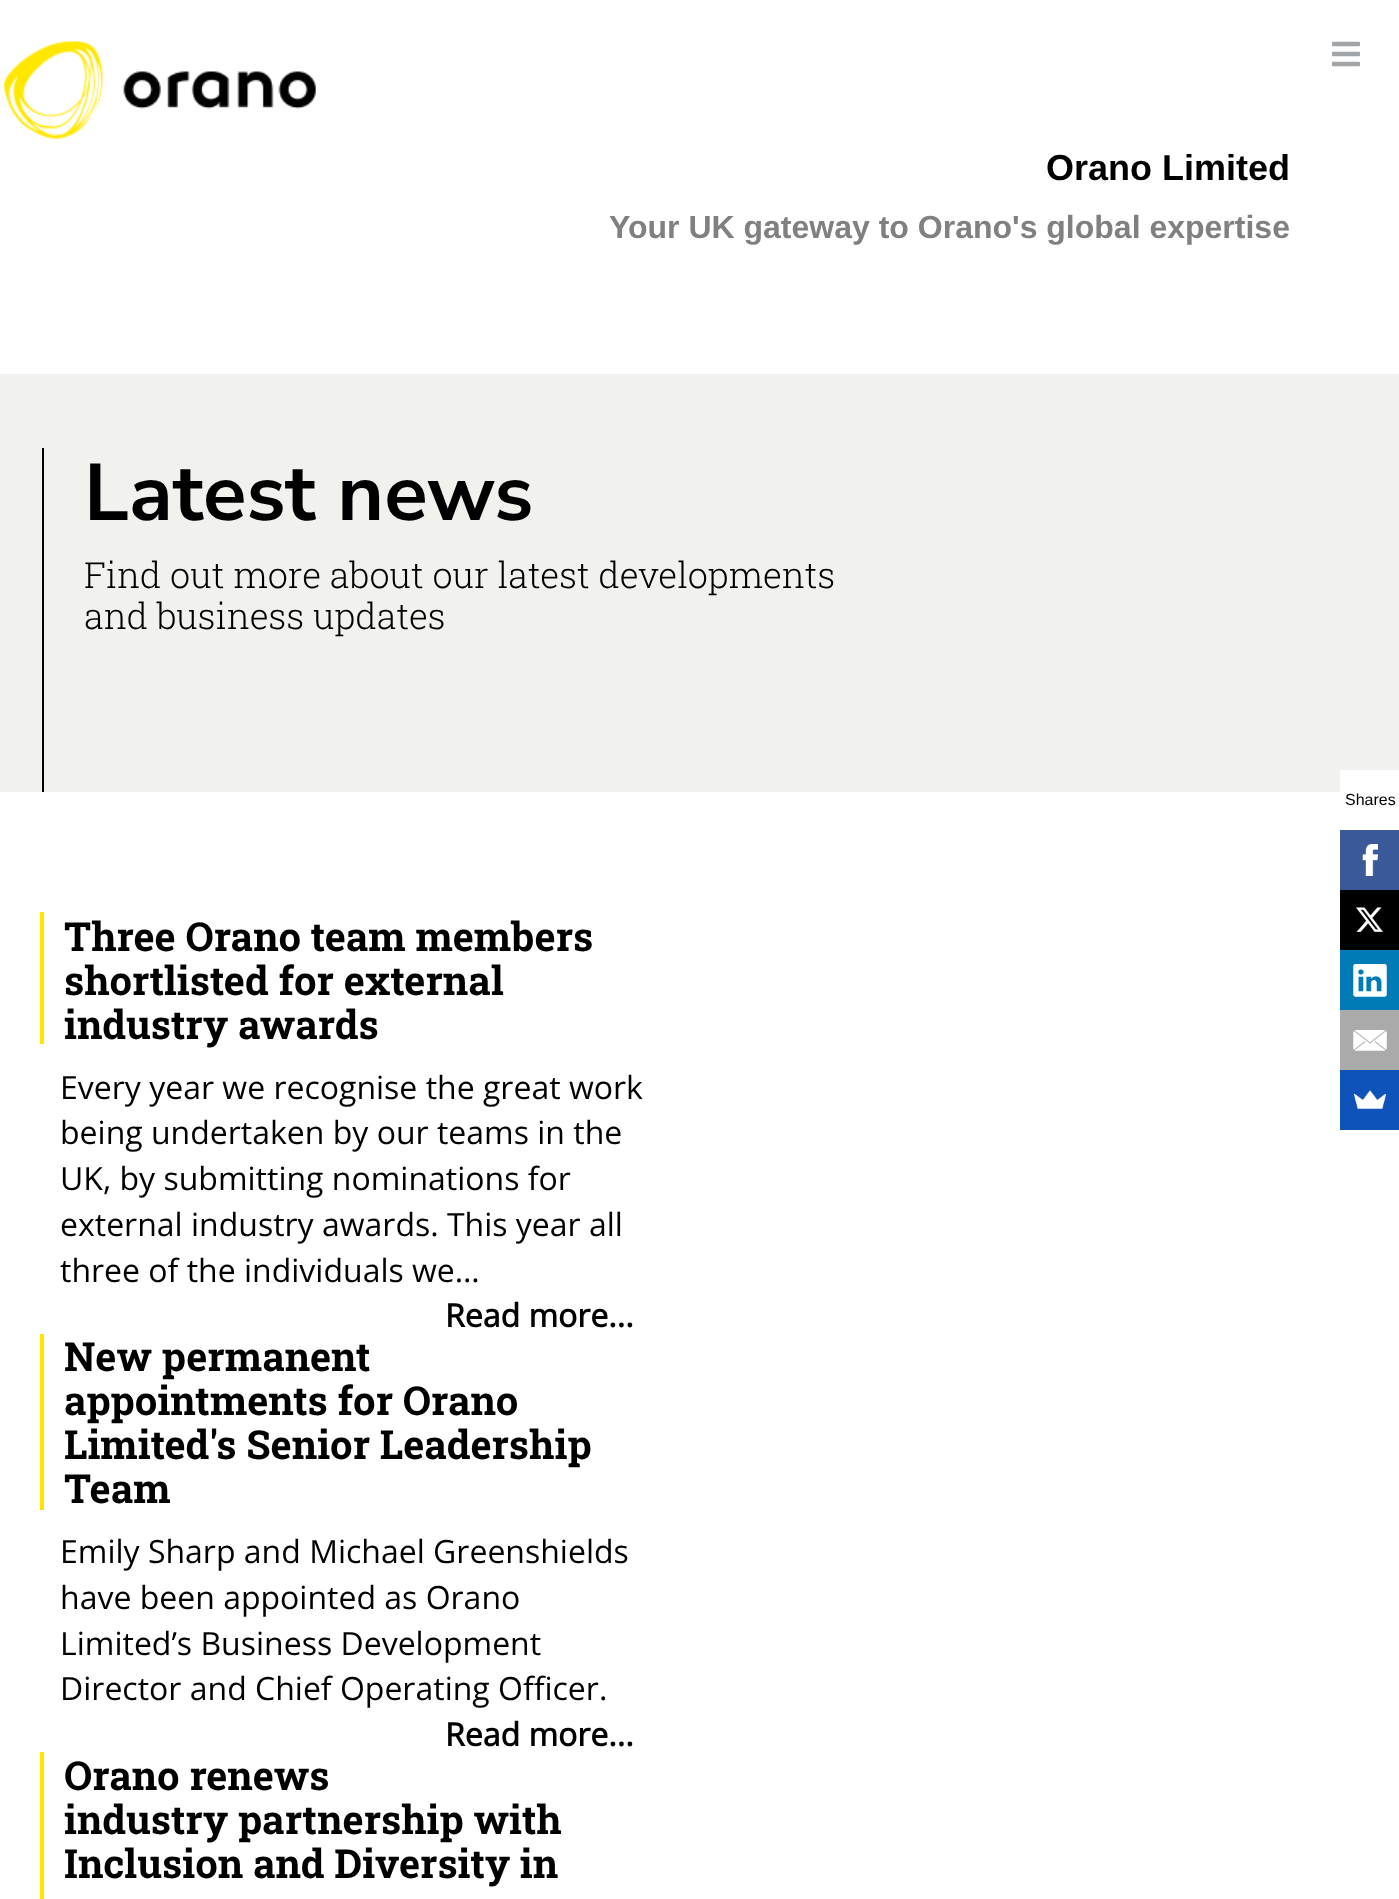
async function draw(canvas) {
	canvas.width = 1399;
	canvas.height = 1899;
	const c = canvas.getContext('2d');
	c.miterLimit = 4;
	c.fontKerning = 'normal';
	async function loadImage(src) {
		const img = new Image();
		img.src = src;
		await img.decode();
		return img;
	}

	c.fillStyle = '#fff';
	c.fillRect(0, 0, 1399, 1899);
	c.drawImage(await loadImage('img1.png'), 1332, 41, 28, 26);
	c.drawImage(await loadImage('img2.png'), 3, 40, 313, 99);
	c.font = 'bold 36px Liberation Sans';
	c.fillStyle = '#000';
	c.fillText('Orano Limited', 1046, 180);
	c.font = 'bold 32px Liberation Sans';
	c.fillStyle = '#808080';
	c.fillText('Your UK gateway to Orano\'s global expertise', 609, 238);
	c.fillStyle = '#f1f2ed';
	c.fillRect(0, 374, 1399, 418);
	c.fillStyle = '#000';
	c.fillRect(42, 448, 2, 344);
	c.font = '200 80px Nunito Sans';
	c.fillText('Latest news', 84, 520);
	c.font = '300 36px Roboto Slab';
	c.fillText('Find out more about our latest developments', 84, 588);
	c.fillText('and business updates', 84, 629);
	c.fillStyle = '#ffe600';
	c.fillRect(40, 912, 4, 132);
	c.font = 'bold 40px Roboto Slab';
	c.fillStyle = '#000';
	for (const [text, x, y] of [
		['Three Orano team members', 64, 951],
		['shortlisted for external', 64, 995],
		['industry awards', 64, 1039],
	]) {
		c.fillText(text, x, y);
	}
	c.font = '32px Open Sans';
	for (const [text, x, y] of [
		['Every year we recognise the great work', 60, 1099],
		['being undertaken by our teams in the', 60, 1144],
		['UK, by submitting nominations for', 60, 1190],
		['external industry awards. This year all', 60, 1236],
		['three of the individuals we…', 60, 1282],
	]) {
		c.fillText(text, x, y);
	}
	c.font = 'bold 32px Open Sans';
	c.fillText('Read more...', 445, 1327);
	c.fillStyle = '#ffe600';
	c.fillRect(40, 1334, 4, 176);
	c.font = 'bold 40px Roboto Slab';
	c.fillStyle = '#000';
	for (const [text, x, y] of [
		['New permanent', 64, 1371],
		['appointments for Orano', 64, 1415],
		['Limited\'s Senior Leadership', 64, 1459],
		['Team', 64, 1503],
	]) {
		c.fillText(text, x, y);
	}
	c.font = '32px Open Sans';
	for (const [text, x, y] of [
		['Emily Sharp and Michael Greenshields', 60, 1563],
		['have been appointed as Orano', 60, 1609],
		['Limited’s Business Development', 60, 1655],
		['Director and Chief Operating Officer.', 60, 1700],
	]) {
		c.fillText(text, x, y);
	}
	c.font = 'bold 32px Open Sans';
	c.fillText('Read more...', 445, 1746);
	c.fillStyle = '#ffe600';
	c.fillRect(40, 1752, 4, 147);
	c.font = 'bold 40px Roboto Slab';
	c.fillStyle = '#000';
	for (const [text, x, y] of [
		['Orano renews', 64, 1790],
		['industry partnership with', 64, 1834],
		['Inclusion and Diversity in', 64, 1878],
	]) {
		c.fillText(text, x, y);
	}
	c.fillStyle = '#fff';
	c.fillRect(1340, 770, 59, 22);
	c.font = '16px Liberation Sans';
	c.fillStyle = '#000';
	c.fillText('Shares', 1345, 805);
	c.fillStyle = '#3b5998';
	c.fillRect(1340, 830, 59, 60);
	c.drawImage(await loadImage('img3.png'), 1362, 844, 16, 32);
	c.fillStyle = '#000';
	c.fillRect(1340, 890, 59, 60);
	c.drawImage(await loadImage('img4.png'), 1356, 907, 27, 25);
	c.fillStyle = '#007bb6';
	c.fillRect(1340, 950, 59, 60);
	c.drawImage(await loadImage('img5.png'), 1353, 964, 34, 33);
	c.fillStyle = '#aaa';
	c.fillRect(1340, 1010, 59, 60);
	c.drawImage(await loadImage('img6.png'), 1353, 1030, 34, 21);
	c.fillStyle = '#0f52ba';
	c.fillRect(1340, 1070, 59, 60);
	c.drawImage(await loadImage('img7.png'), 1354, 1090, 32, 19);
}

draw(document.querySelector('canvas'));
